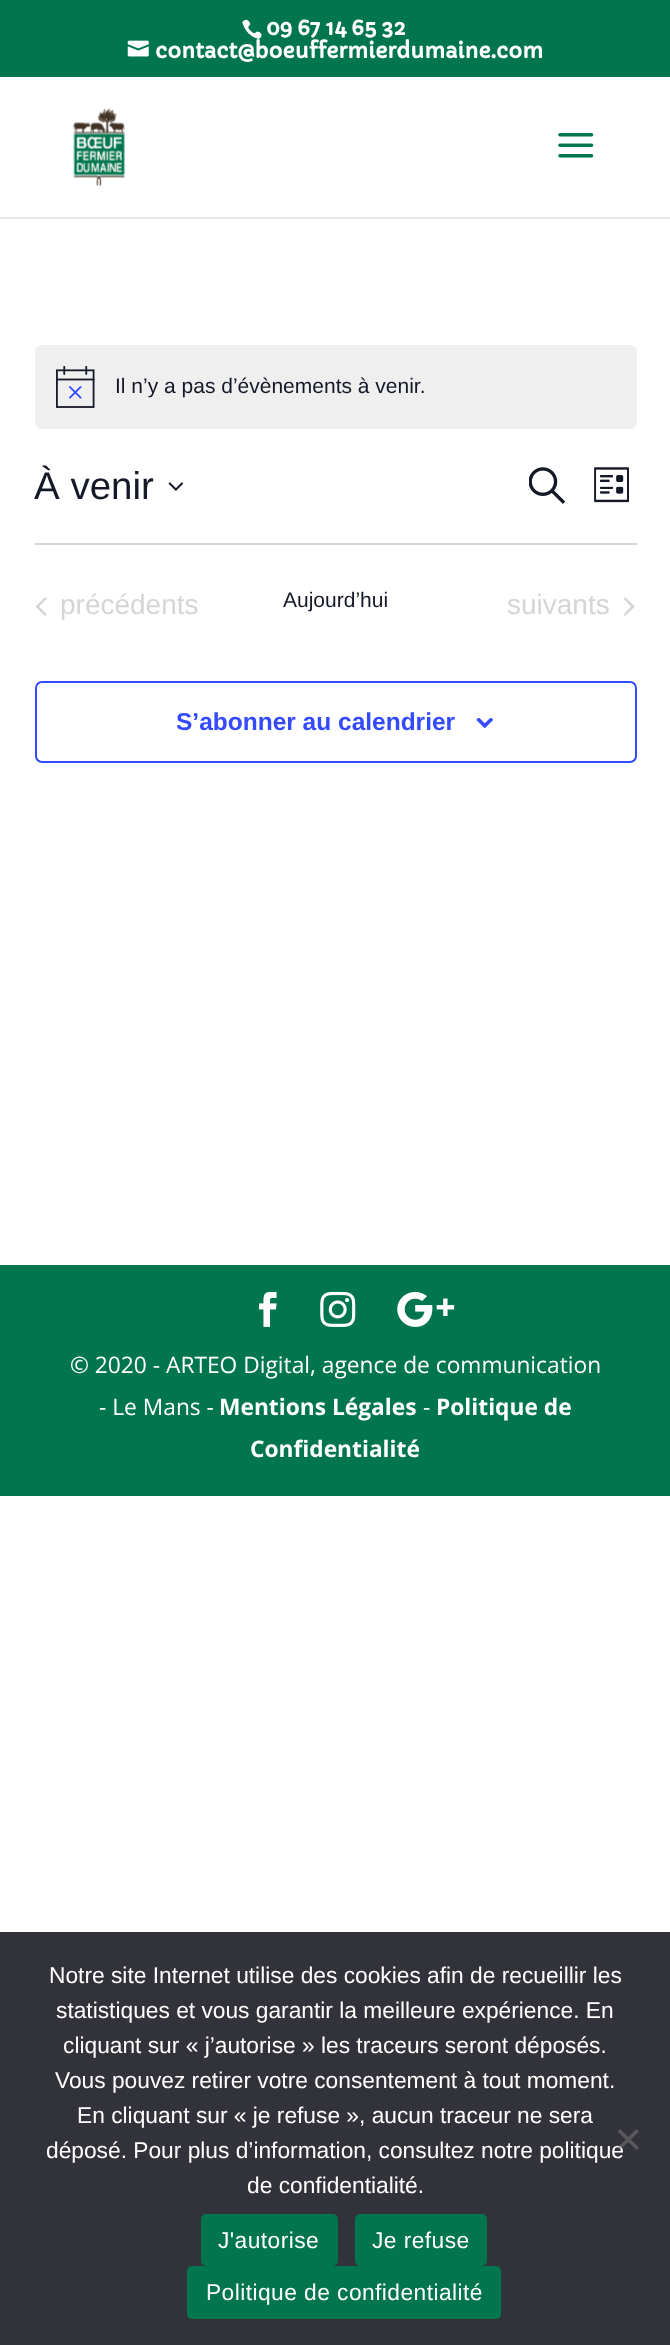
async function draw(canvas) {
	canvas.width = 670;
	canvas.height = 2345;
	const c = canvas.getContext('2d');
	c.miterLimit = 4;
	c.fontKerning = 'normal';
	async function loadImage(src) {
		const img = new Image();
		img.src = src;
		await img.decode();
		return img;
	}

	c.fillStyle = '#fff';
	c.fillRect(0, 0, 670, 2345);
	c.fillStyle = '#00754e';
	c.fillRect(0, 0, 670, 77);
	c.drawImage(await loadImage('img1.png'), 242, 19, 20, 20);
	c.font = 'bold 21px Capriola';
	c.fillStyle = '#fff';
	c.fillText('09 67 14 65 32', 266, 35);
	c.drawImage(await loadImage('img2.png'), 127, 40, 22, 17);
	c.fillText('contact@boeuffermierdumaine.com', 155, 58);
	c.fillStyle = '#e6e6e6';
	c.fillRect(0, 217, 670, 2);
	c.drawImage(await loadImage('img3.png'), 72, 108, 53, 78);
	c.drawImage(await loadImage('img4.png'), 558, 133, 36, 25);
	c.fillStyle = '#efeff0';
	c.beginPath();
	c.roundRect(35, 345, 602, 84, 7);
	c.fill();
	c.drawImage(await loadImage('img5.png'), 56, 366, 39, 42);
	c.font = '21px Liberation Sans';
	c.fillStyle = '#141827';
	c.fillText('Il n’y a pas d’évènements à venir.', 115, 393);
	c.font = '38.5px Liberation Sans';
	c.fillText('À venir', 34, 499);
	c.drawImage(await loadImage('img6.png'), 168, 482, 16, 9);
	c.drawImage(await loadImage('img7.png'), 529, 467, 36, 37);
	c.drawImage(await loadImage('img8.png'), 594, 467, 35, 36);
	c.fillStyle = '#d5d5d5';
	c.fillRect(35, 543, 602, 2);
	c.beginPath();
	c.moveTo(47, 614.5);
	c.lineTo(45, 616);
	c.lineTo(35.5, 606.5);
	c.lineTo(45, 597);
	c.lineTo(47, 598.5);
	c.lineTo(39, 606.5);
	c.closePath();
	c.fill();
	c.font = '28px Liberation Sans';
	c.fillText('précédents', 60, 614);
	c.font = '21px Liberation Sans';
	c.fillStyle = '#141827';
	c.fillText('Aujourd’hui', 283, 607);
	c.font = '28px Liberation Sans';
	c.fillStyle = '#d5d5d5';
	c.fillText('suivants', 507, 614);
	c.beginPath();
	c.moveTo(623.5, 598.5);
	c.lineTo(625, 597);
	c.lineTo(635, 606.5);
	c.lineTo(625, 616);
	c.lineTo(623.5, 614.5);
	c.lineTo(631, 606.5);
	c.closePath();
	c.fill();
	c.beginPath();
	c.roundRect(36, 682, 600, 80, 6);
	c.strokeStyle = '#334aff';
	c.lineWidth = 2;
	c.stroke();
	c.font = 'bold 24.5px Liberation Sans';
	c.fillStyle = '#334aff';
	c.fillText('S’abonner au calendrier', 176, 730);
	c.drawImage(await loadImage('img9.png'), 476, 718, 18, 10);
	c.fillStyle = '#00754e';
	c.fillRect(0, 1265, 670, 231);
	c.drawImage(await loadImage('img10.png'), 259, 1291, 18, 36);
	c.drawImage(await loadImage('img11.png'), 320, 1291, 36, 36);
	c.drawImage(await loadImage('img12.png'), 397, 1291, 58, 36);
	c.font = '22.75px Open Sans';
	c.fillStyle = '#fff';
	c.fillText('© 2020 - ARTEO Digital, agence de communication', 70, 1373);
	c.fillText('- Le Mans -', 99, 1415);
	c.font = 'bold 22.75px Open Sans';
	c.fillText('Mentions Légales', 219, 1415);
	c.font = '22.75px Open Sans';
	c.fillText('-', 423, 1415);
	c.font = 'bold 22.75px Open Sans';
	c.fillText('Politique de', 436, 1415);
	c.fillText('Confidentialité', 250, 1457);
	c.fillStyle = '#32323a';
	c.fillRect(0, 1932, 670, 413);
	c.font = '22.75px Liberation Sans';
	c.fillStyle = '#fff';
	for (const [text, x, y] of [
		['Notre site Internet utilise des cookies afin de recueillir les', 49, 1983],
		['statistiques et vous garantir la meilleure expérience. En', 56, 2018],
		['cliquant sur « j’autorise » les traceurs seront déposés.', 63, 2053],
		['Vous pouvez retirer votre consentement à tout moment.', 55, 2088],
		['En cliquant sur « je refuse », aucun traceur ne sera', 77, 2123],
		['déposé. Pour plus d’information, consultez notre politique', 46, 2158],
		['de confidentialité.', 247, 2193],
	]) {
		c.fillText(text, x, y);
	}
	c.fillStyle = '#80808080';
	c.beginPath();
	c.moveTo(636.5, 2129);
	c.lineTo(639, 2131.5);
	c.lineTo(620, 2150);
	c.lineTo(617.5, 2147.5);
	c.closePath();
	c.fill();
	c.fillStyle = '#59595d';
	c.beginPath();
	c.moveTo(617.5, 2131.5);
	c.lineTo(620, 2129);
	c.lineTo(639, 2147.5);
	c.lineTo(636.5, 2150);
	c.closePath();
	c.fill();
	c.fillStyle = '#00754e';
	c.beginPath();
	c.roundRect(201, 2214, 137, 52, 5);
	c.fill();
	c.letterSpacing = '0.45px';
	c.fillStyle = '#fff';
	c.fillText('J\'autorise', 218, 2248);
	c.fillStyle = '#00754e';
	c.beginPath();
	c.roundRect(355, 2214, 132, 52, 5);
	c.fill();
	c.fillStyle = '#fff';
	c.fillText('Je refuse', 372, 2248);
	c.fillStyle = '#00754e';
	c.beginPath();
	c.roundRect(187, 2266, 314, 53, 5);
	c.fill();
	c.fillStyle = '#fff';
	c.fillText('Politique de confidentialité', 206, 2300);
}

draw(document.querySelector('canvas'));
